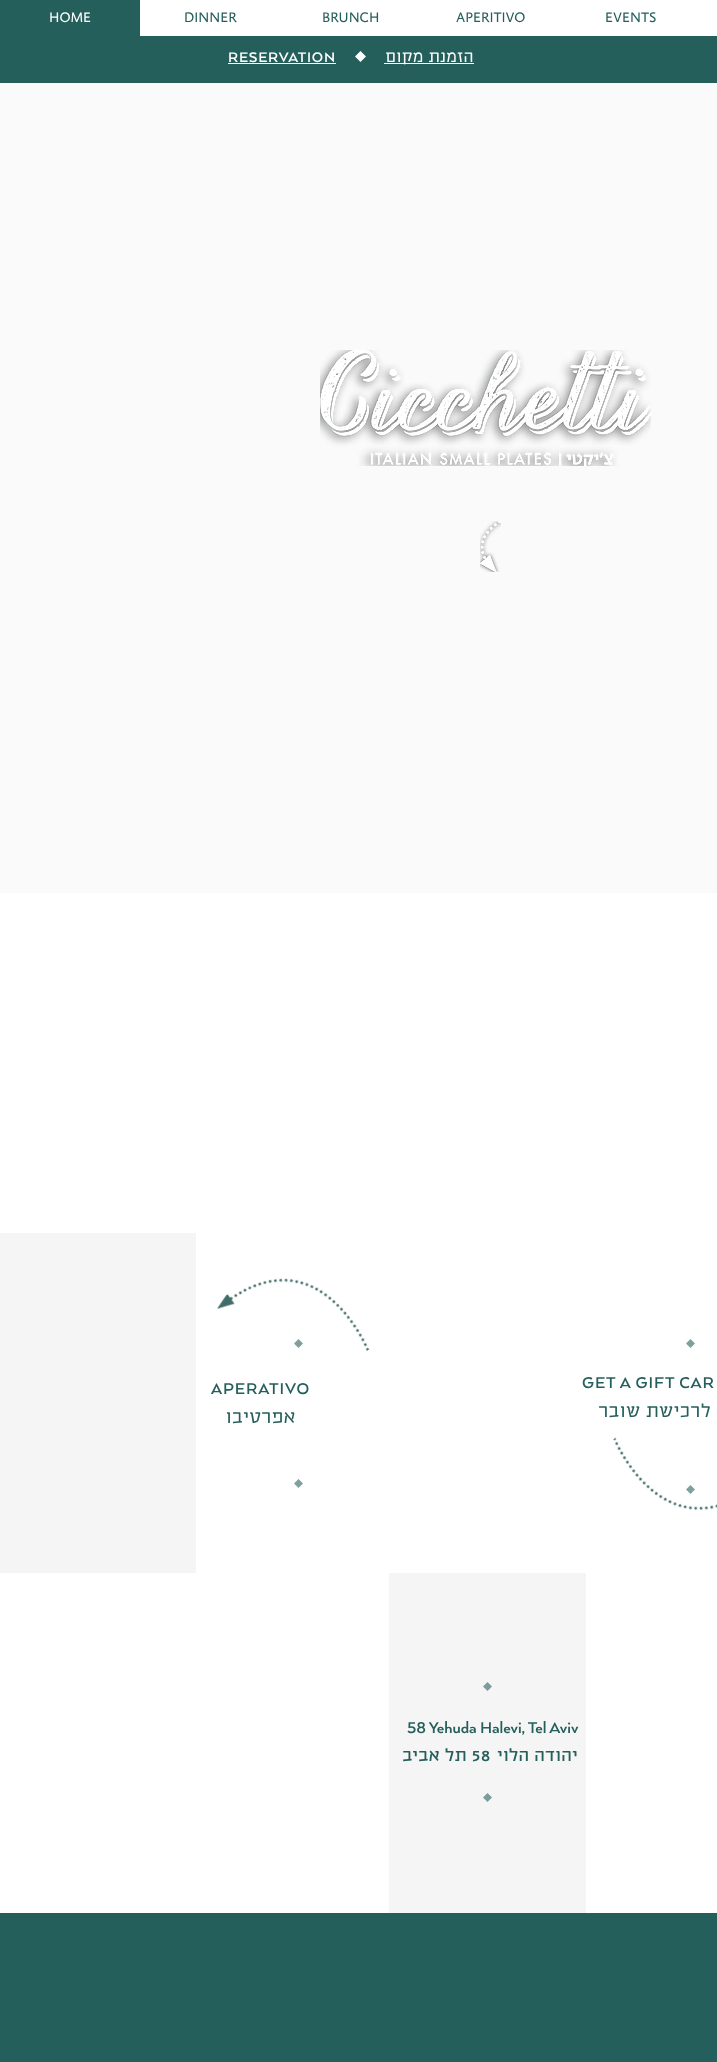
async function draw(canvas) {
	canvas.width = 717;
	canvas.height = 2062;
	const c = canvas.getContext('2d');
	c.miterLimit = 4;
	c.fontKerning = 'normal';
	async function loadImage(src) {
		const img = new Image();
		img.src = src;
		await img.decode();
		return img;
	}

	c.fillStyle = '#fff';
	c.fillRect(0, 0, 717, 2062);
	c.fillStyle = '#255f5c';
	c.fillRect(0, 0, 140, 36);
	c.font = '14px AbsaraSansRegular';
	c.fillStyle = '#fff';
	c.fillText('HOME', 49, 22);
	c.fillStyle = '#255f5c';
	for (const [text, x, y] of [
		['DINNER', 184, 22],
		['BRUNCH', 322, 22],
		['APERITIVO', 456, 22],
		['EVENTS', 605, 22],
	]) {
		c.fillText(text, x, y);
	}
	c.fillRect(0, 36, 717, 47);
	c.letterSpacing = '0.75px';
	c.font = 'bold 16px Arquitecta';
	c.fillStyle = '#fff';
	c.fillText('RESERVATION', 228, 62);
	c.fillRect(228, 63, 108, 1);
	c.beginPath();
	c.moveTo(366, 56.5);
	c.lineTo(360.5, 62);
	c.lineTo(355, 56.5);
	c.lineTo(360.5, 51);
	c.closePath();
	c.fill();
	c.fillRect(384, 63, 90, 1);
	c.direction = 'rtl';
	c.font = '200 16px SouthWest';
	c.fillText('הזמנת מקום', 474, 62);
	c.fillStyle = '#fafafa';
	c.fillRect(0, 83, 717, 810);
	c.drawImage(await loadImage('img1.png'), 320, 350, 331, 116);
	c.drawImage(await loadImage('img2.png'), 480, 521, 21, 51);
	c.fillStyle = '#f5f5f5';
	c.fillRect(0, 1233, 196, 340);
	c.drawImage(await loadImage('img3.png'), 217, 1278, 153, 73);
	c.fillStyle = '#7ea19f';
	c.beginPath();
	c.moveTo(303, 1343.5);
	c.lineTo(298.5, 1348);
	c.lineTo(294, 1343.5);
	c.lineTo(298.5, 1339);
	c.closePath();
	c.fill();
	c.letterSpacing = '0.9px';
	c.direction = 'ltr';
	c.font = 'bold 18px Arquitecta';
	c.fillStyle = '#255f5c';
	c.fillText('APERATIVO', 211, 1394);
	c.direction = 'rtl';
	c.font = '200 18px SouthWest';
	c.fillText('אפרטיבו', 296, 1423);
	c.fillStyle = '#7ea19f';
	c.beginPath();
	c.moveTo(303, 1483.5);
	c.lineTo(298.5, 1488);
	c.lineTo(294, 1483.5);
	c.lineTo(298.5, 1479);
	c.closePath();
	c.fill();
	c.beginPath();
	c.moveTo(695, 1343.5);
	c.lineTo(690.5, 1348);
	c.lineTo(686, 1343.5);
	c.lineTo(690.5, 1339);
	c.closePath();
	c.fill();
	c.direction = 'ltr';
	c.font = 'bold 18px Arquitecta';
	c.fillStyle = '#255f5c';
	c.fillText('GET A GIFT CAR', 582, 1388);
	c.direction = 'rtl';
	c.font = '200 18px SouthWest';
	c.fillText('לרכישת שובר', 711, 1417);
	c.drawImage(await loadImage('img4.png'), 613, 1437, 104, 74);
	c.fillStyle = '#7ea19f';
	c.beginPath();
	c.moveTo(695, 1489.5);
	c.lineTo(690.5, 1494);
	c.lineTo(686, 1489.5);
	c.lineTo(690.5, 1485);
	c.closePath();
	c.fill();
	c.fillStyle = '#f5f5f5';
	c.fillRect(389, 1573, 197, 340);
	c.fillStyle = '#7a9d9b';
	c.beginPath();
	c.moveTo(492, 1686.5);
	c.lineTo(487.5, 1691);
	c.lineTo(483, 1686.5);
	c.lineTo(487.5, 1682);
	c.closePath();
	c.fill();
	c.beginPath();
	c.moveTo(492, 1797.5);
	c.lineTo(487.5, 1802);
	c.lineTo(483, 1797.5);
	c.lineTo(487.5, 1793);
	c.closePath();
	c.fill();
	c.letterSpacing = '0px';
	c.direction = 'ltr';
	c.font = 'bold 18px Arquitecta';
	c.fillStyle = '#255f5c';
	c.fillText('58 Yehuda Halevi, Tel Aviv', 407, 1733);
	c.letterSpacing = '0.75px';
	c.direction = 'rtl';
	c.font = '300 17px SouthWest';
	c.fillText('תל אביב', 467, 1761);
	c.direction = 'ltr';
	c.fillText('58', 472, 1761);
	c.direction = 'rtl';
	c.fillText('יהודה הלוי', 578, 1761);
	c.fillRect(0, 1913, 717, 149);
}

draw(document.querySelector('canvas'));
